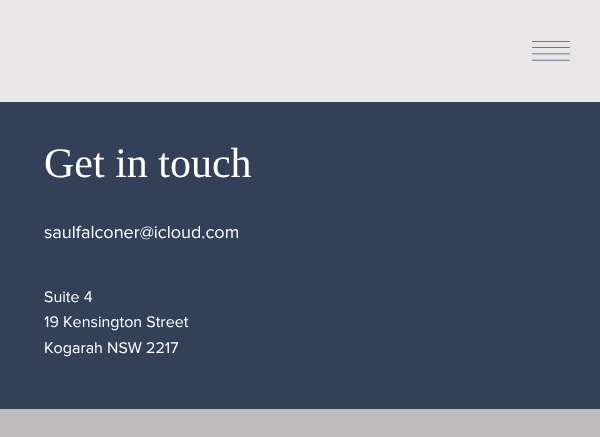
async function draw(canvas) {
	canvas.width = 600;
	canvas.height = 437;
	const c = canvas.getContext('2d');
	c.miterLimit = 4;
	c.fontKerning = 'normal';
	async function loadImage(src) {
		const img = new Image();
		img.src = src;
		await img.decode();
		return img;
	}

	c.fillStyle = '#e8e6e6';
	c.fillRect(0, 0, 600, 437);
	c.drawImage(await loadImage('img1.png'), 532, 41, 38, 20);
	c.fillStyle = '#324158';
	c.fillRect(0, 102, 600, 307);
	c.font = '42px Liberation Serif';
	c.fillStyle = '#fff';
	c.fillText('Get in touch', 44, 177);
	c.font = '18px "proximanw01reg"';
	c.fillText('saulfalconer@icloud.com', 44, 238);
	c.font = '16px "proximanw01reg"';
	for (const [text, x, y] of [
		['Suite 4', 44, 302],
		['19 Kensington Street', 44, 327],
		['Kogarah NSW 2217', 44, 353],
	]) {
		c.fillText(text, x, y);
	}
	c.fillStyle = '#bdbbbb';
	c.fillRect(0, 409, 600, 28);
}

draw(document.querySelector('canvas'));
